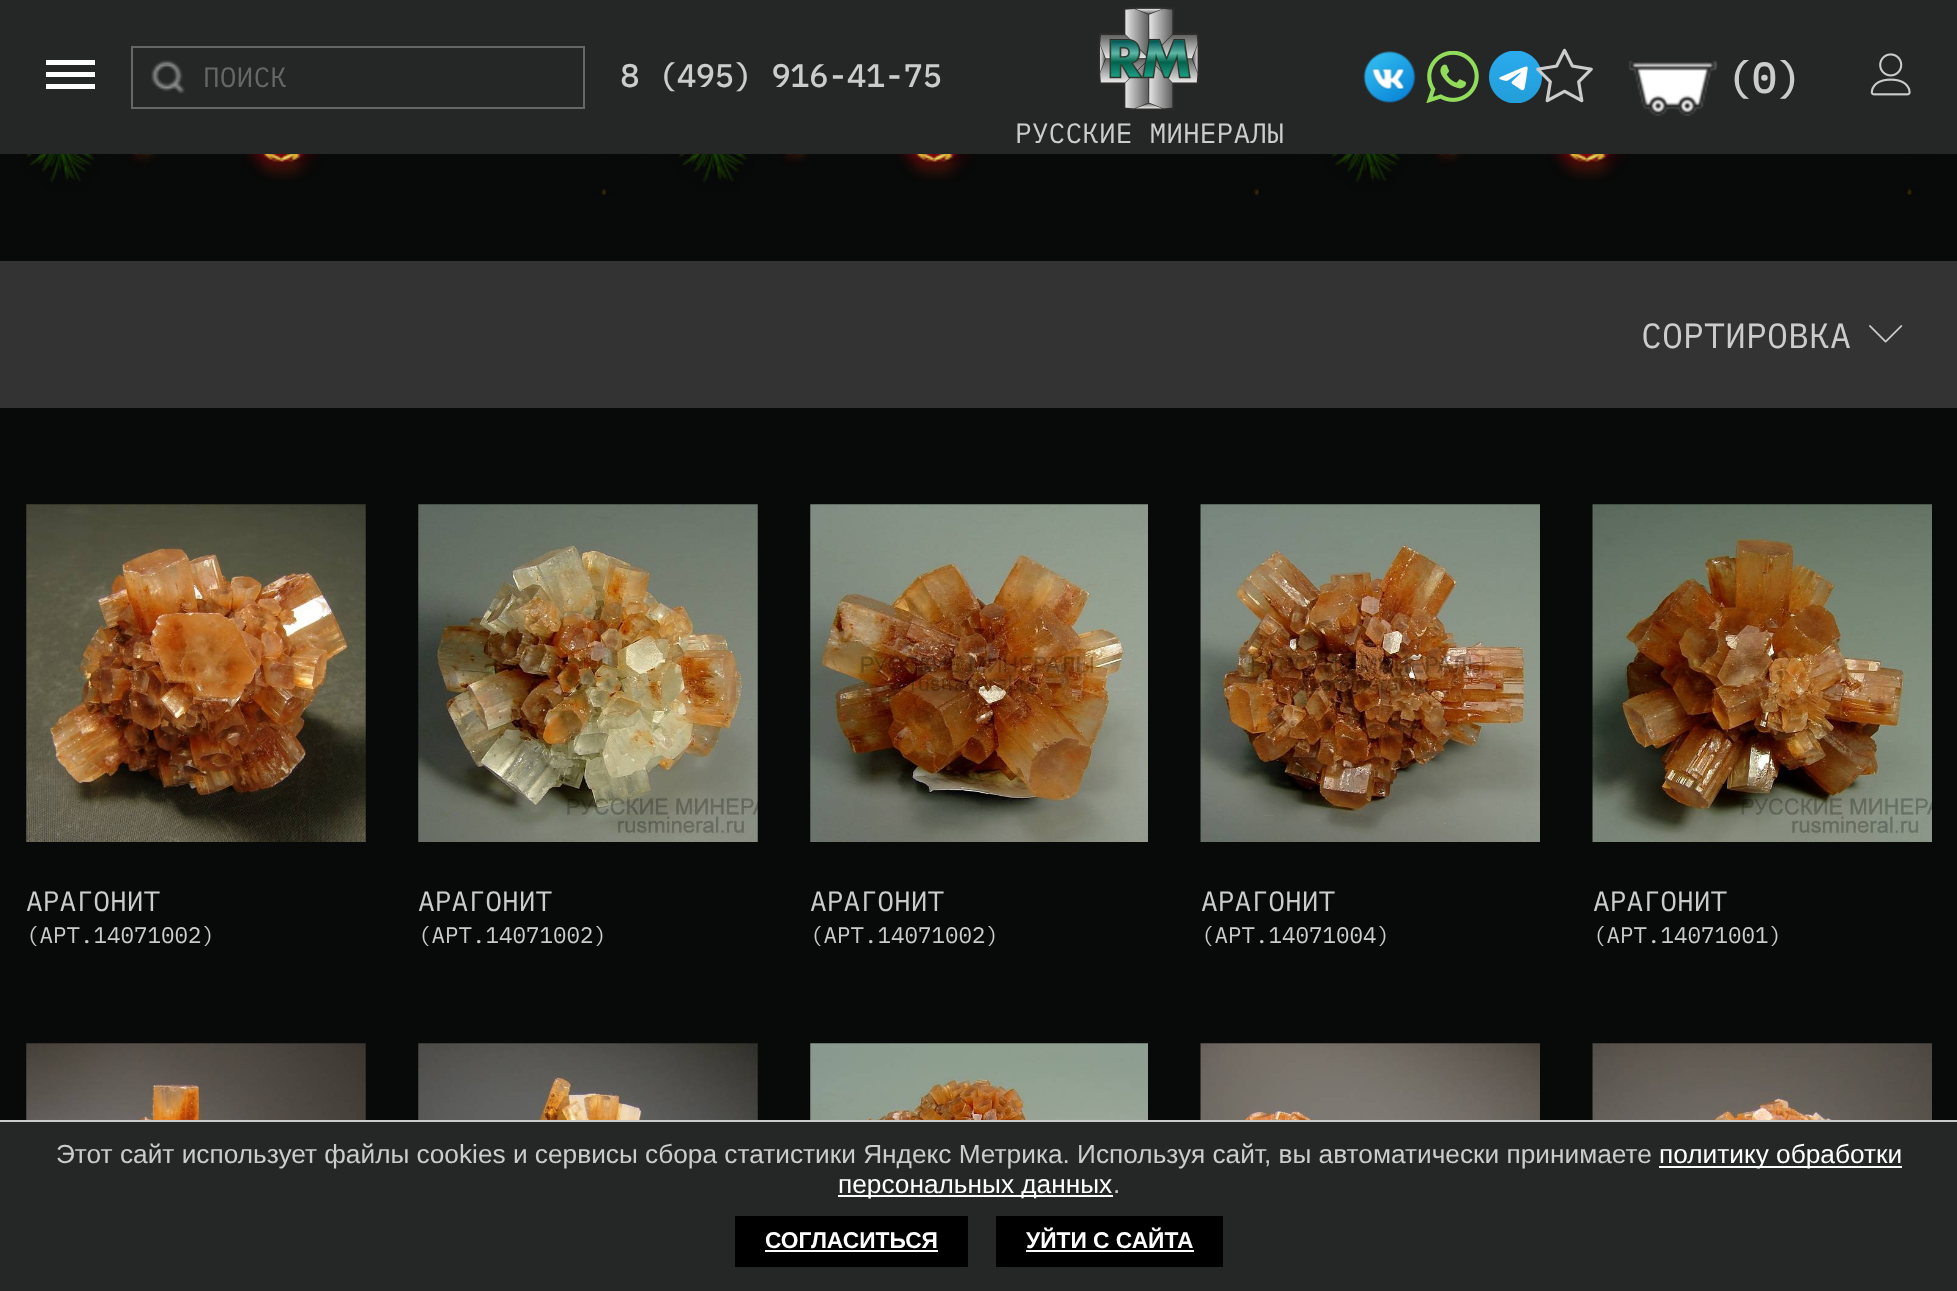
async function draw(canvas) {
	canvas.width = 1957;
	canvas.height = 1291;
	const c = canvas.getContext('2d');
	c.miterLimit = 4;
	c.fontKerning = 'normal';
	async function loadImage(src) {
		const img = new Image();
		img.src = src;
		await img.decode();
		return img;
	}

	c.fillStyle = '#080909';
	c.fillRect(0, 0, 1957, 1291);
	for (const [x, y, w, h, color] of [
		[0, 0, 1957, 154, '#252626'],
		[46, 60, 49, 5, '#fff'],
		[46, 72, 49, 5, '#fff'],
		[46, 84, 49, 5, '#fff'],
	]) {
		c.fillStyle = color;
		c.fillRect(x, y, w, h);
	}
	c.strokeStyle = '#666';
	c.lineWidth = 2;
	c.strokeRect(132, 47, 452, 61);
	c.drawImage(await loadImage('img1.png'), 151, 60, 34, 34);
	c.font = '28px IBM Plex Mono';
	c.fillStyle = '#666';
	c.fillText('ПОИСК', 203, 87);
	c.font = 'bold 31.5px IBM Plex Mono';
	c.fillStyle = '#ccc';
	c.fillText('8 (495) 916-41-75', 620, 87);
	c.drawImage(await loadImage('img2.png'), 1363, 51, 53, 52);
	c.drawImage(await loadImage('img3.png'), 1426, 51, 53, 52);
	c.drawImage(await loadImage('img4.png'), 1489, 51, 53, 52);
	c.drawImage(await loadImage('img5.png'), 1536, 48, 57, 55);
	c.drawImage(await loadImage('img6.png'), 1628, 60, 90, 57);
	c.font = 'bold 42px IBM Plex Mono';
	c.fillText('(0)', 1726, 93);
	c.drawImage(await loadImage('img7.png'), 1870, 53, 41, 43);
	c.drawImage(await loadImage('img8.png'), 1098, 7, 102, 103);
	c.font = '28px IBM Plex Mono';
	c.fillText('РУССКИЕ МИНЕРАЛЫ', 1015, 143);
	c.drawImage(await loadImage('img9.png'), 20, 154, 1915, 41);
	c.drawImage(await loadImage('img10.png'), 242, 154, 82, 27);
	c.drawImage(await loadImage('img11.png'), 895, 154, 82, 27);
	c.drawImage(await loadImage('img12.png'), 1547, 154, 83, 27);
	c.fillStyle = '#333';
	c.fillRect(0, 261, 1957, 147);
	c.font = '35px IBM Plex Mono';
	c.fillStyle = '#ccc';
	c.fillText('СОРТИРОВКА', 1641, 348);
	c.drawImage(await loadImage('img13.png'), 1869, 325, 34, 18);
	c.drawImage(await loadImage('img14.png'), 26, 504, 340, 338);
	c.font = '28px IBM Plex Mono';
	c.fillText('АРАГОНИТ', 26, 911);
	c.font = '22.5px IBM Plex Mono';
	c.fillText('(АРТ.14071002)', 26, 943);
	c.drawImage(await loadImage('img15.png'), 418, 504, 340, 338);
	c.font = '28px IBM Plex Mono';
	c.fillText('АРАГОНИТ', 418, 911);
	c.font = '22.5px IBM Plex Mono';
	c.fillText('(АРТ.14071002)', 418, 943);
	c.drawImage(await loadImage('img16.png'), 810, 504, 338, 338);
	c.font = '28px IBM Plex Mono';
	c.fillText('АРАГОНИТ', 810, 911);
	c.font = '22.5px IBM Plex Mono';
	c.fillText('(АРТ.14071002)', 810, 943);
	c.drawImage(await loadImage('img17.png'), 1200, 504, 340, 338);
	c.font = '28px IBM Plex Mono';
	c.fillText('АРАГОНИТ', 1201, 911);
	c.font = '22.5px IBM Plex Mono';
	c.fillText('(АРТ.14071004)', 1201, 943);
	c.drawImage(await loadImage('img18.png'), 1592, 504, 340, 338);
	c.font = '28px IBM Plex Mono';
	c.fillText('АРАГОНИТ', 1593, 911);
	c.font = '22.5px IBM Plex Mono';
	c.fillText('(АРТ.14071001)', 1593, 943);
	c.drawImage(await loadImage('img19.png'), 26, 1043, 340, 77);
	c.drawImage(await loadImage('img20.png'), 418, 1043, 340, 77);
	c.drawImage(await loadImage('img21.png'), 810, 1043, 338, 77);
	c.drawImage(await loadImage('img22.png'), 1200, 1043, 340, 77);
	c.drawImage(await loadImage('img23.png'), 1592, 1043, 340, 77);
	c.fillStyle = '#252626';
	c.fillRect(0, 1122, 1957, 169);
	c.fillStyle = '#ccc';
	c.fillRect(0, 1120, 1957, 2);
	c.font = '26.25px Liberation Sans';
	c.fillText('Этот сайт использует файлы cookies и сервисы сбора статистики Яндекс Метрика. Используя сайт, вы автоматически принимаете', 56, 1163);
	c.fillStyle = '#fff';
	c.fillRect(1659, 1166, 243, 2);
	c.fillText('политику обработки', 1659, 1163);
	c.fillRect(838, 1195, 275, 2);
	c.fillText('персональных данных', 838, 1193);
	c.fillStyle = '#ccc';
	c.fillText('.', 1113, 1193);
	c.fillStyle = '#000';
	c.fillRect(735, 1216, 233, 51);
	c.font = 'bold 22.75px Liberation Sans';
	c.fillStyle = '#fff';
	c.fillText('СОГЛАСИТЬСЯ', 765, 1248);
	c.fillRect(765, 1250, 173, 2);
	c.fillStyle = '#000';
	c.fillRect(996, 1216, 227, 51);
	c.fillStyle = '#fff';
	c.fillText('УЙТИ С САЙТА', 1026, 1248);
	c.fillRect(1026, 1250, 168, 2);
}

draw(document.querySelector('canvas'));
